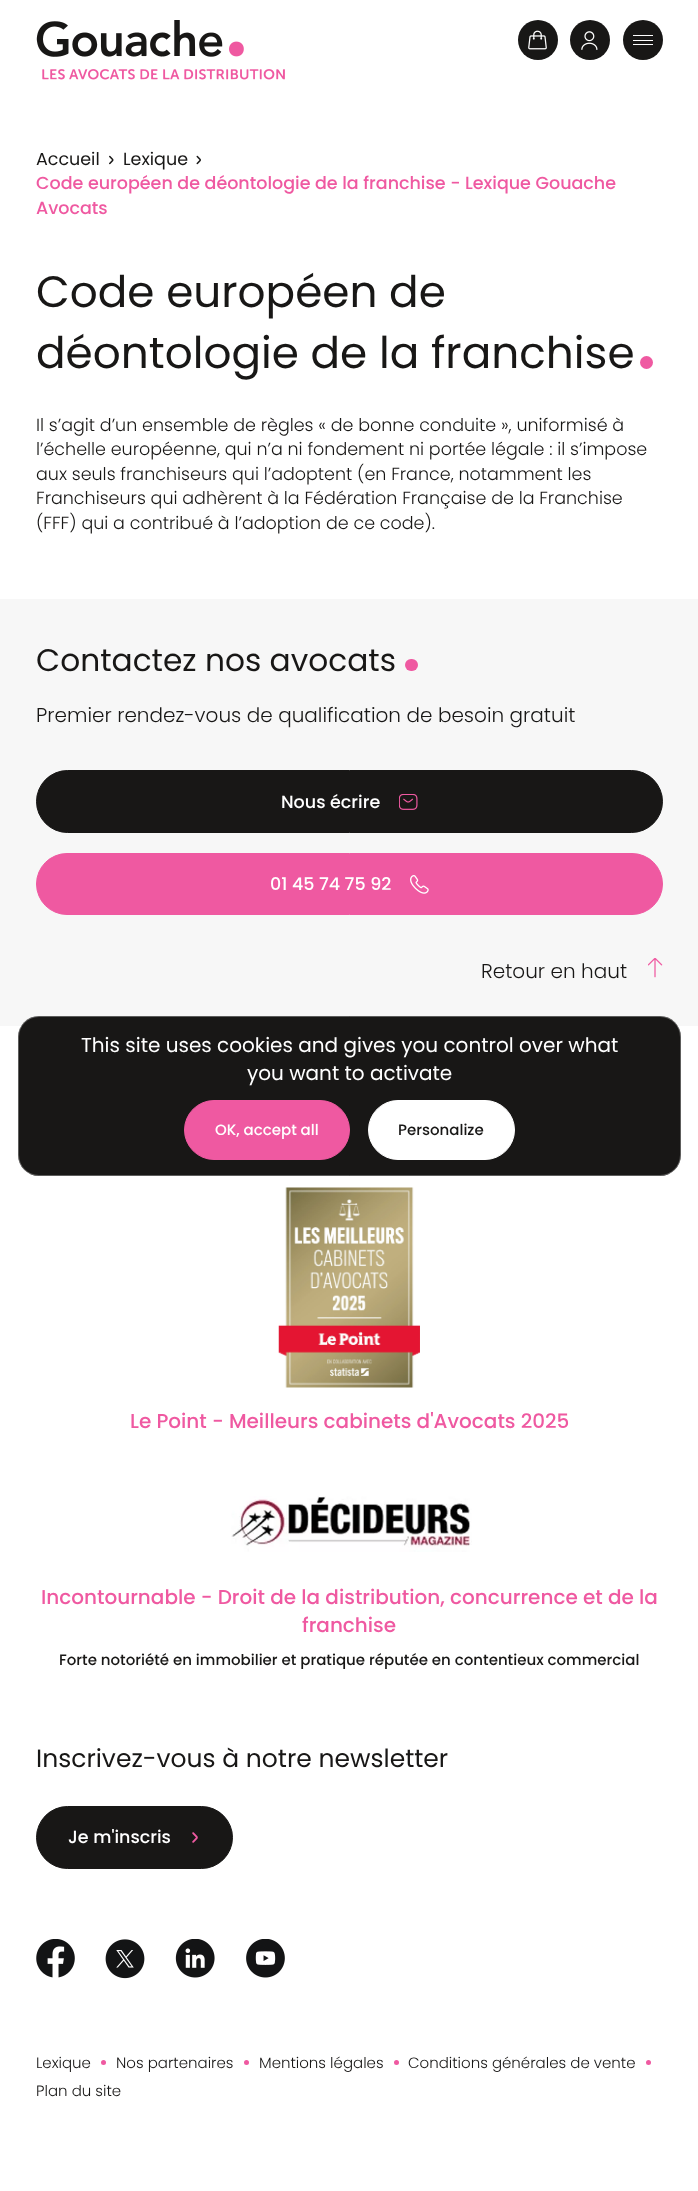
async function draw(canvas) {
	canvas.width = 698;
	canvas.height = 2191;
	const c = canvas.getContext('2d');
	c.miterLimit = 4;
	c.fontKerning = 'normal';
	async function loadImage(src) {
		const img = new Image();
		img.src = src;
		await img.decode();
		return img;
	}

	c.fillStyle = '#fff';
	c.fillRect(0, 0, 698, 2191);
	c.drawImage(await loadImage('img1.png'), 36, 20, 249, 60);
	c.fillStyle = '#181716';
	c.beginPath();
	c.arc(538, 40, 20, 0, 2 * Math.PI);
	c.fill();
	c.drawImage(await loadImage('img2.png'), 528, 30, 19, 20);
	c.beginPath();
	c.arc(590, 40, 20, 0, 2 * Math.PI);
	c.fill();
	c.drawImage(await loadImage('img3.png'), 581, 31, 17, 19);
	c.beginPath();
	c.arc(643, 40, 20, 0, 2 * Math.PI);
	c.fill();
	for (const [x, y, w, h, color] of [
		[633, 35, 20, 1, '#fff'],
		[633, 40, 20, 1, '#fff'],
		[633, 44, 20, 1, '#fff'],
	]) {
		c.fillStyle = color;
		c.fillRect(x, y, w, h);
	}
	c.font = '17.5px Poppins';
	c.fillStyle = '#181716';
	c.fillText('Accueil', 36, 165);
	c.drawImage(await loadImage('img4.png'), 109, 155, 5, 10);
	c.fillText('Lexique', 123, 165);
	c.drawImage(await loadImage('img5.png'), 196, 155, 5, 10);
	c.font = '500 17.5px Poppins';
	c.fillStyle = '#ef59a1';
	c.fillText('Code européen de déontologie de la franchise - Lexique Gouache', 36, 189);
	c.fillText('Avocats', 36, 214);
	c.font = '43.75px Poppins';
	c.fillStyle = '#181716';
	c.fillText('Code européen de', 36, 307);
	c.fillText('déontologie de la franchise', 36, 368);
	c.fillStyle = '#ef59a1';
	c.beginPath();
	c.arc(646.5, 362.5, 6.5, 0, 2 * Math.PI);
	c.fill();
	c.font = '300 17.5px Poppins';
	c.fillStyle = '#181716';
	for (const [text, x, y] of [
		['Il s’agit d’un ensemble de règles « de bonne conduite », uniformisé à', 36, 431],
		['l’échelle européenne, qui n’a ni fondement ni portée légale : il s’impose', 36, 455],
		['aux seuls franchiseurs qui l’adoptent (en France, notamment les', 36, 480],
		['Franchiseurs qui adhèrent à la Fédération Française de la Franchise', 36, 504],
		['(FFF) qui a contribué à l’adoption de ce code).', 36, 529],
	]) {
		c.fillText(text, x, y);
	}
	c.fillStyle = '#f7f7f7';
	c.fillRect(0, 599, 698, 427);
	c.font = '31.25px Poppins';
	c.fillStyle = '#181716';
	c.fillText('Contactez nos avocats', 36, 671);
	c.fillStyle = '#ef59a1';
	c.beginPath();
	c.roundRect(405, 659, 13, 12, 6);
	c.fill();
	c.font = '300 20px Poppins';
	c.fillStyle = '#181716';
	c.fillText('Premier rendez-vous de qualification de besoin gratuit', 36, 722);
	c.beginPath();
	c.roundRect(36.5, 770.5, 626, 62, 31);
	c.fill();
	c.strokeStyle = '#181716';
	c.stroke();
	c.font = '500 17.5px Poppins';
	c.fillStyle = '#fff';
	c.fillText('Nous écrire', 281, 808);
	c.drawImage(await loadImage('img6.png'), 399, 794, 19, 16);
	c.fillStyle = '#ef59a1';
	c.beginPath();
	c.roundRect(36.5, 853.5, 626, 61, 30.5);
	c.fill();
	c.strokeStyle = '#ef59a1';
	c.stroke();
	c.fillStyle = '#fff';
	c.fillText('01 45 74 75 92', 270, 890);
	c.drawImage(await loadImage('img7.png'), 410, 875, 19, 19);
	c.font = '300 20px Poppins';
	c.fillStyle = '#181716';
	c.fillText('Retour en haut', 481, 978);
	c.drawImage(await loadImage('img8.png'), 648, 958, 15, 20);
	c.drawImage(await loadImage('img9.png'), 278, 1187, 142, 201);
	c.font = '500 20px Poppins';
	c.fillStyle = '#ef59a1';
	c.fillText('Le Point - Meilleurs cabinets d\'Avocats 2025', 130, 1428);
	c.drawImage(await loadImage('img10.png'), 231, 1496, 241, 56);
	c.fillText('Incontournable - Droit de la distribution, concurrence et de la', 41, 1604);
	c.fillText('franchise', 302, 1632);
	c.font = '500 15px Poppins';
	c.fillStyle = '#181716';
	c.fillText('Forte notoriété en immobilier et pratique réputée en contentieux commercial', 59, 1665);
	c.font = '25px Poppins';
	c.fillText('Inscrivez-vous à notre newsletter', 36, 1767);
	c.beginPath();
	c.roundRect(36.5, 1806.5, 196, 62, 31);
	c.fill();
	c.strokeStyle = '#181716';
	c.stroke();
	c.font = '500 17.5px Poppins';
	c.fillStyle = '#fff';
	c.fillText('Je m\'inscris', 68, 1843);
	c.drawImage(await loadImage('img11.png'), 192, 1832, 6, 11);
	c.drawImage(await loadImage('img12.png'), 36, 1939, 39, 39);
	c.drawImage(await loadImage('img13.png'), 105, 1939, 40, 40);
	c.drawImage(await loadImage('img14.png'), 175, 1939, 40, 39);
	c.drawImage(await loadImage('img15.png'), 246, 1939, 39, 39);
	c.font = '300 15px Poppins';
	c.fillStyle = '#181716';
	c.fillText('Lexique', 36, 2068);
	c.fillStyle = '#ef59a1';
	c.beginPath();
	c.arc(103.5, 2062.5, 2.5, 0, 2 * Math.PI);
	c.fill();
	c.fillStyle = '#181716';
	c.fillText('Nos partenaires', 116, 2068);
	c.fillStyle = '#ef59a1';
	c.beginPath();
	c.arc(246.5, 2062.5, 2.5, 0, 2 * Math.PI);
	c.fill();
	c.fillStyle = '#181716';
	c.fillText('Mentions légales', 259, 2068);
	c.fillStyle = '#ef59a1';
	c.beginPath();
	c.arc(396.5, 2062.5, 2.5, 0, 2 * Math.PI);
	c.fill();
	c.fillStyle = '#181716';
	c.fillText('Conditions générales de vente', 408, 2068);
	c.fillStyle = '#ef59a1';
	c.beginPath();
	c.arc(648.5, 2062.5, 2.5, 0, 2 * Math.PI);
	c.fill();
	c.fillStyle = '#181716';
	c.fillText('Plan du site', 36, 2096);
	c.beginPath();
	c.roundRect(18, 1016, 663, 160, 21);
	c.fill();
	c.beginPath();
	c.roundRect(18.5, 1016.5, 662, 159, 20.5);
	c.strokeStyle = '#ffffff4d';
	c.stroke();
	c.font = '20px Poppins';
	c.fillStyle = '#fff';
	c.fillText('This site uses cookies and gives you control over what', 81, 1052);
	c.fillText('you want to activate', 247, 1080);
	c.fillStyle = '#ef59a1';
	c.beginPath();
	c.roundRect(184.5, 1100.5, 165, 59, 29.5);
	c.fill();
	c.strokeStyle = '#ef59a1';
	c.stroke();
	c.font = '500 15px Poppins';
	c.fillStyle = '#fff';
	c.fillText('OK, accept all', 215, 1135);
	c.beginPath();
	c.roundRect(368.5, 1100.5, 146, 59, 29.5);
	c.fill();
	c.strokeStyle = '#fff';
	c.stroke();
	c.fillStyle = '#181716';
	c.fillText('Personalize', 398, 1135);
}

draw(document.querySelector('canvas'));
